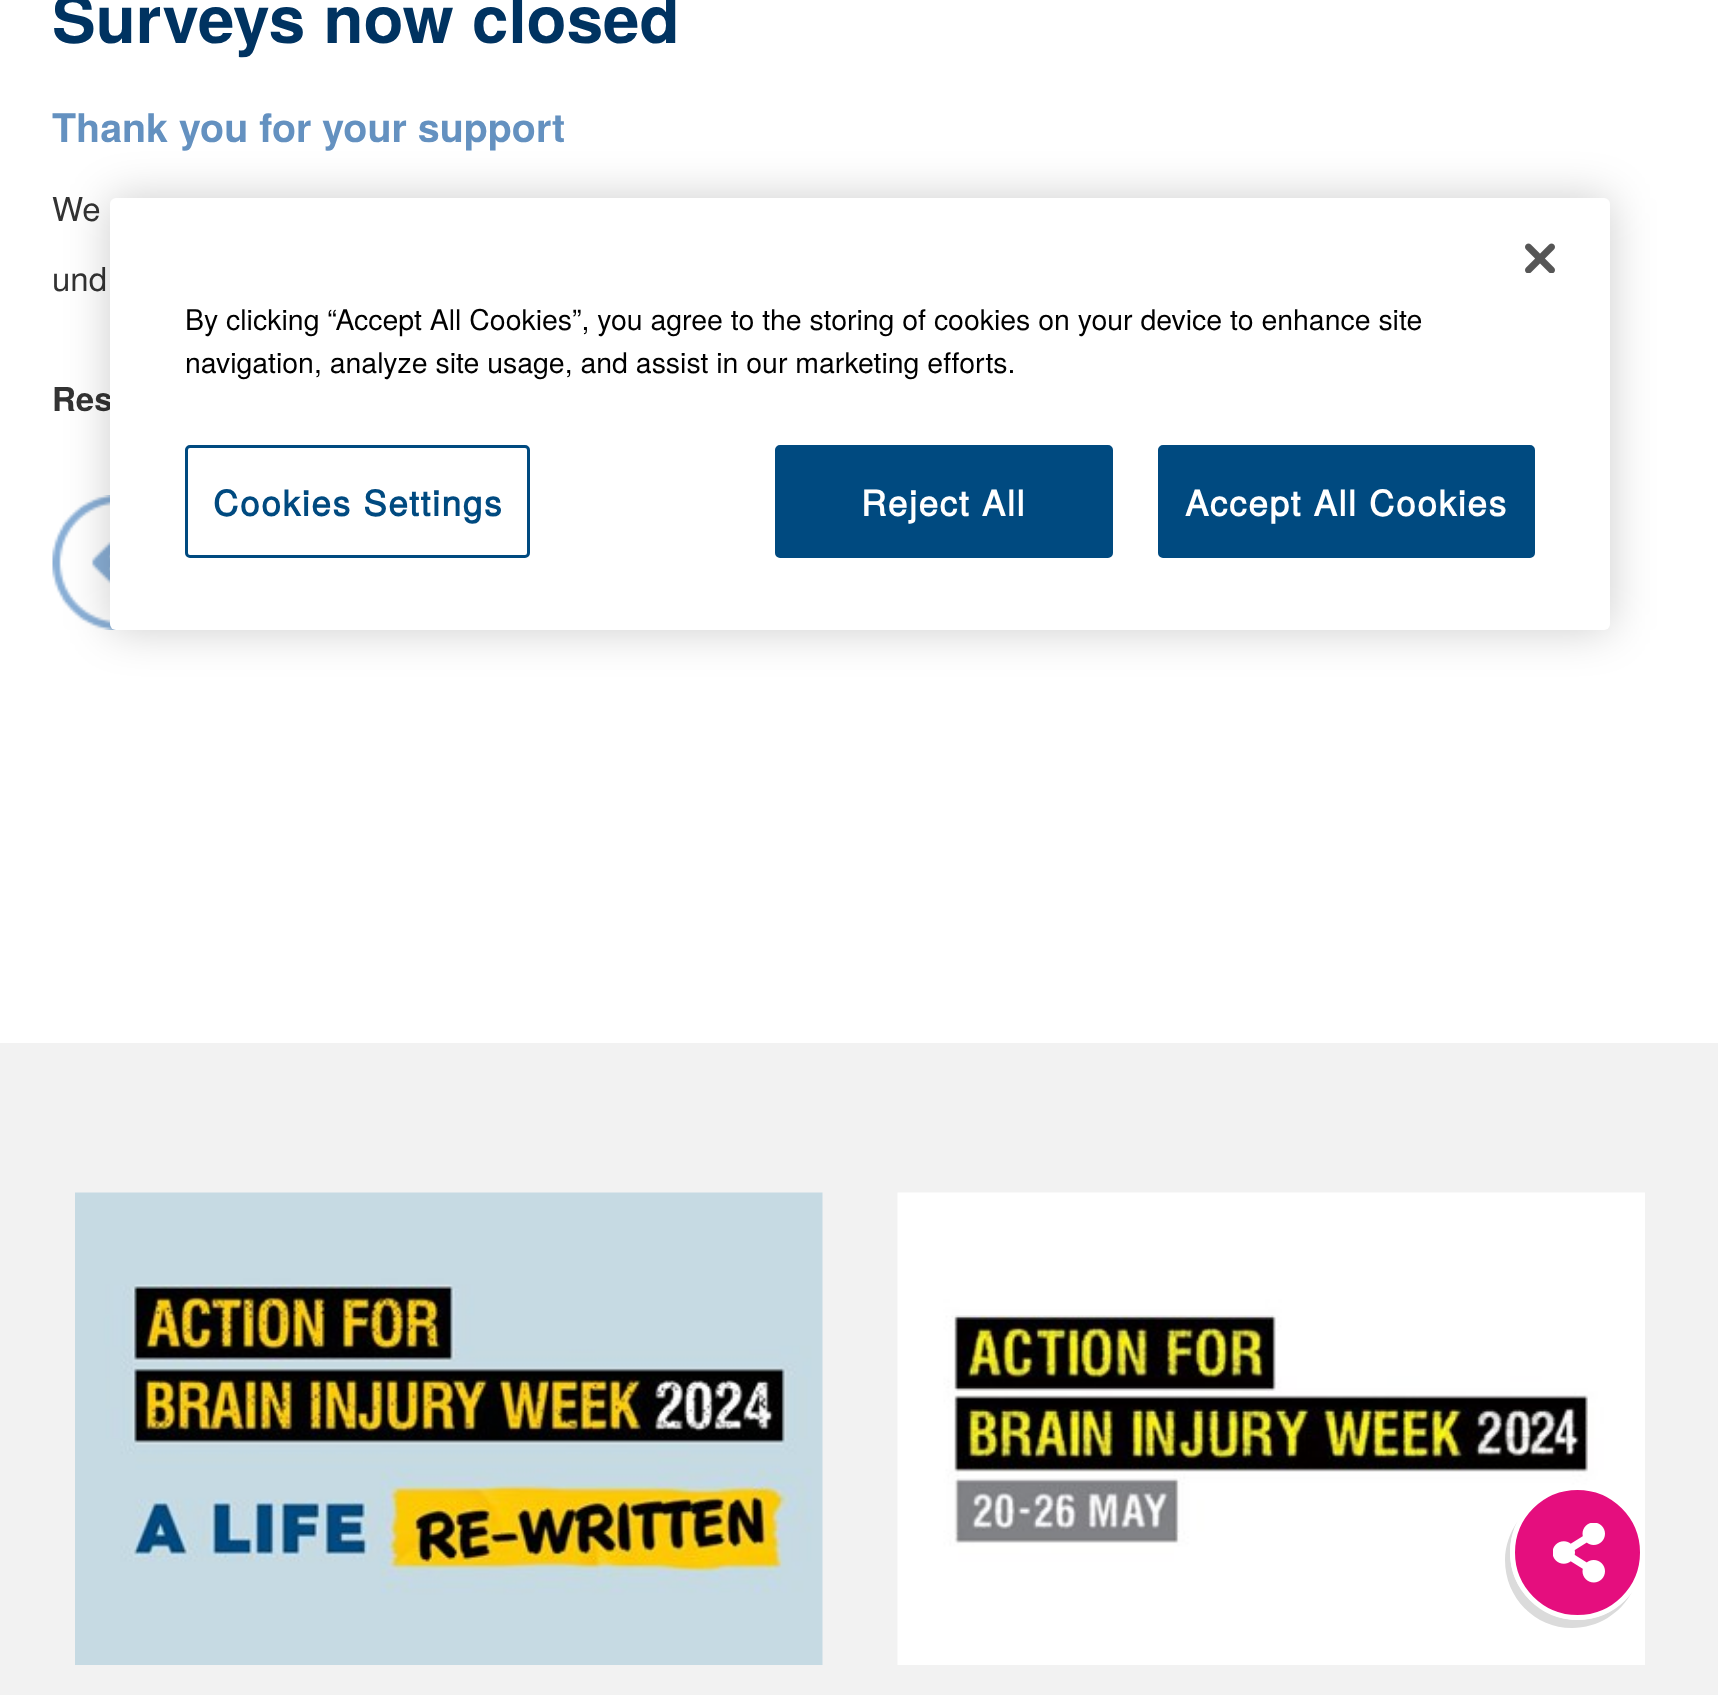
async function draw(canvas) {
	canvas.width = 1718;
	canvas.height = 1695;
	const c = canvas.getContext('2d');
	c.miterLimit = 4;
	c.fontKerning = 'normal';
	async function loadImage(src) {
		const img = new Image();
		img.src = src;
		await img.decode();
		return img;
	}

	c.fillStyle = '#fff';
	c.fillRect(0, 0, 1718, 1695);
	c.font = 'bold 65.5px TeX Gyre Heros';
	c.fillStyle = '#003361';
	c.fillText('Surveys now closed', 52, 43);
	c.font = 'bold 39.4px TeX Gyre Heros';
	c.fillStyle = '#6491c0';
	c.fillText('Thank you for your support', 52, 142);
	c.font = '33px TeX Gyre Heros';
	c.fillStyle = '#333';
	c.fillText('We', 52, 221);
	c.fillText('und', 52, 291);
	c.font = 'bold 33px TeX Gyre Heros';
	c.fillText('Res', 52, 411);
	c.drawImage(await loadImage('img1.png'), 52, 495, 64, 135);
	c.fillStyle = '#00000033';
	c.filter = 'blur(22.5px)';
	c.beginPath();
	c.roundRect(110, 198, 1500, 432, 6);
	c.fill();
	c.filter = 'none';
	c.fillStyle = '#fff';
	c.beginPath();
	c.roundRect(110, 198, 1500, 432, 6);
	c.fill();
	c.drawImage(await loadImage('img2.png'), 1525, 243, 30, 30);
	c.font = '28.45px TeX Gyre Heros';
	c.fillStyle = '#000';
	c.fillText('By clicking “Accept All Cookies”, you agree to the storing of cookies on your device to enhance site', 185, 330);
	c.fillText('navigation, analyze site usage, and assist in our marketing efforts.', 185, 373);
	c.beginPath();
	c.roundRect(186.5, 446.5, 342, 110, 3.5);
	c.strokeStyle = '#004a80';
	c.lineWidth = 3;
	c.stroke();
	c.letterSpacing = '1.75px';
	c.font = 'bold 35px "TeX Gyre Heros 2"';
	c.fillStyle = '#004a80';
	c.fillText('Cookies Settings', 213, 516);
	c.beginPath();
	c.roundRect(776.5, 446.5, 335, 110, 3.5);
	c.fill();
	c.stroke();
	c.fillStyle = '#fff';
	c.fillText('Reject All', 861, 516);
	c.fillStyle = '#004a80';
	c.beginPath();
	c.roundRect(1159.5, 446.5, 374, 110, 3.5);
	c.fill();
	c.stroke();
	c.fillStyle = '#fff';
	c.fillText('Accept All Cookies', 1185, 516);
	c.fillStyle = '#f2f2f2';
	c.fillRect(0, 1043, 1718, 652);
	c.drawImage(await loadImage('img3.png'), 75, 1192, 748, 473);
	c.drawImage(await loadImage('img4.png'), 897, 1192, 748, 473);
	c.fillStyle = '#dbdbdb';
	c.beginPath();
	c.moveTo(1518, 1521);
	c.bezierCurveTo(1510, 1532, 1505, 1546, 1505, 1560);
	c.bezierCurveTo(1505, 1598, 1535, 1628, 1572, 1628);
	c.bezierCurveTo(1598, 1628, 1621, 1613, 1632, 1592);
	c.bezierCurveTo(1611, 1621, 1570, 1629, 1540, 1608);
	c.bezierCurveTo(1511, 1589, 1502, 1551, 1518, 1521);
	c.closePath();
	c.fill();
	c.fillStyle = '#e50e7e';
	c.beginPath();
	c.arc(1577.5, 1552.5, 65, 0, 2 * Math.PI);
	c.fill();
	c.strokeStyle = '#fff';
	c.lineWidth = 5;
	c.stroke();
	c.drawImage(await loadImage('img5.png'), 1553, 1523, 52, 60);
}

draw(document.querySelector('canvas'));
